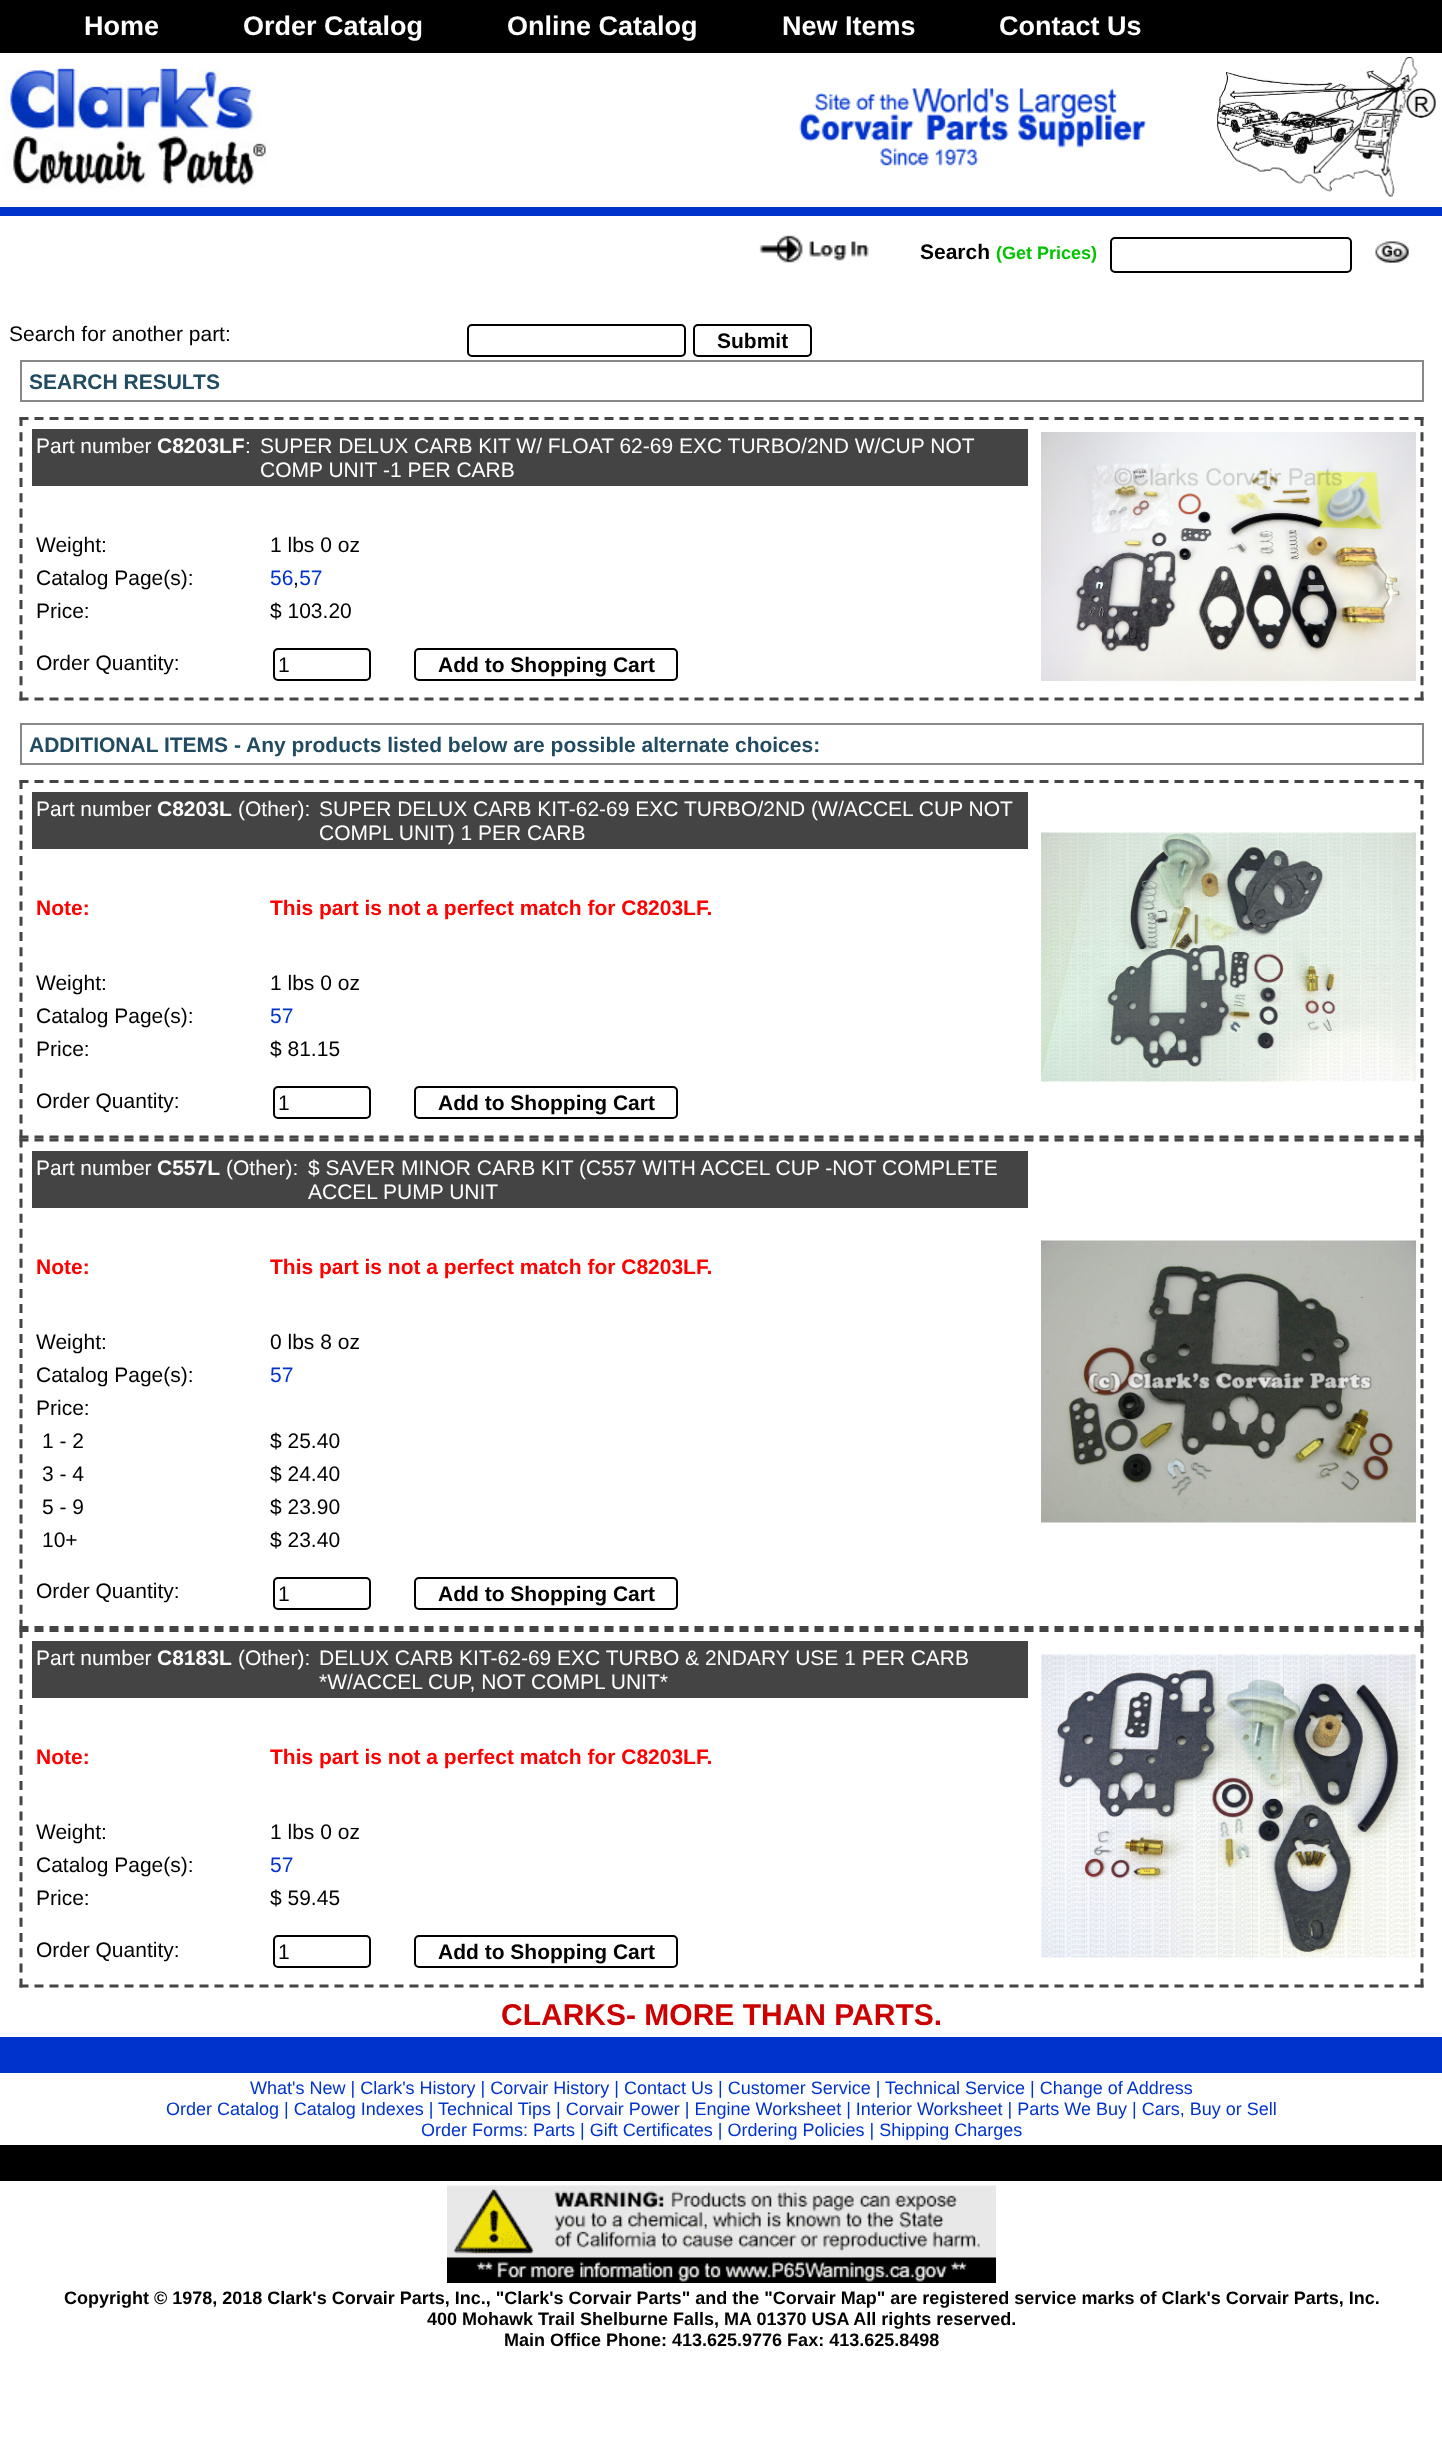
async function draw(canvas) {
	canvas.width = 1442;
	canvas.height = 2440;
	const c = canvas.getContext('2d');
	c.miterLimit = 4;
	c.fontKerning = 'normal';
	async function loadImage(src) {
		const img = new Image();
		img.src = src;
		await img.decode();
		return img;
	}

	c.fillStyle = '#fff';
	c.fillRect(0, 0, 1442, 2440);
	c.fillStyle = '#000';
	c.fillRect(0, 0, 1442, 53);
	c.font = 'bold 27px Liberation Sans';
	c.fillStyle = '#fff';
	for (const [text, x, y] of [
		['Home', 84, 35],
		['Order Catalog', 243, 35],
		['Online Catalog', 507, 35],
		['New Items', 782, 35],
		['Contact Us', 999, 35],
	]) {
		c.fillText(text, x, y);
	}
	c.drawImage(await loadImage('img1.png'), 4, 68, 263, 121);
	c.drawImage(await loadImage('img2.png'), 799, 88, 348, 78);
	c.drawImage(await loadImage('img3.png'), 1217, 57, 220, 140);
	c.fillStyle = '#03c';
	c.fillRect(0, 207, 1442, 9);
	c.drawImage(await loadImage('img4.png'), 759, 235, 110, 28);
	c.font = 'bold 21px Liberation Sans';
	c.fillStyle = '#000';
	c.fillText('Search', 920, 259);
	c.font = 'bold 18px Liberation Sans';
	c.fillStyle = '#00c300';
	c.fillText('(Get Prices)', 996, 259);
	c.beginPath();
	c.roundRect(1111, 238, 240, 34, 4);
	c.strokeStyle = '#000';
	c.lineWidth = 2;
	c.stroke();
	c.drawImage(await loadImage('img5.png'), 1375, 241, 34, 22);
	c.font = '21px Liberation Sans';
	c.fillStyle = '#000';
	c.fillText('Search for another part:', 9, 341);
	c.beginPath();
	c.roundRect(468, 325, 217, 31, 4);
	c.stroke();
	c.beginPath();
	c.roundRect(694, 325, 117, 31, 4);
	c.stroke();
	c.font = 'bold 21px Liberation Sans';
	c.fillText('Submit', 717, 348);
	c.strokeStyle = '#888';
	c.strokeRect(21, 361, 1402, 40);
	c.fillStyle = '#214b60';
	c.fillText('SEARCH RESULTS', 29, 389);
	c.beginPath();
	c.moveTo(19.5, 418.5);
	c.lineTo(1423.5, 418.5);
	c.strokeStyle = '#444';
	c.lineWidth = 3;
	c.setLineDash([9, 6]);
	c.stroke();
	c.beginPath();
	c.moveTo(1422, 417);
	c.lineTo(1422, 700.5);
	c.setLineDash([9, 6.25]);
	c.stroke();
	c.beginPath();
	c.moveTo(19.5, 699);
	c.lineTo(1423.5, 699);
	c.setLineDash([9, 6]);
	c.stroke();
	c.beginPath();
	c.moveTo(21, 417);
	c.lineTo(21, 700.5);
	c.setLineDash([9, 6.25]);
	c.stroke();
	c.fillStyle = '#444';
	c.fillRect(32, 429, 996, 57);
	c.font = '21px Liberation Sans';
	c.fillStyle = '#fff';
	c.fillText('Part number', 36, 453);
	c.font = 'bold 21px Liberation Sans';
	c.fillText('C8203LF', 157, 453);
	c.font = '21px Liberation Sans';
	for (const [text, x, y] of [
		[':', 245, 453],
		['SUPER DELUX CARB KIT W/ FLOAT 62-69 EXC TURBO/2ND W/CUP NOT', 260, 453],
		['COMP UNIT -1 PER CARB', 260, 477],
	]) {
		c.fillText(text, x, y);
	}
	c.fillStyle = '#000';
	for (const [text, x, y] of [
		['Weight:', 36, 552],
		['1 lbs 0 oz', 270, 552],
		['Catalog Page(s):', 36, 585],
	]) {
		c.fillText(text, x, y);
	}
	c.fillStyle = '#03c';
	c.fillText('56 57', 270, 585);
	c.fillStyle = '#000';
	for (const [text, x, y] of [
		[',', 293, 585],
		['Price:', 36, 618],
		['$ 103.20', 270, 618],
		['Order Quantity:', 36, 670],
	]) {
		c.fillText(text, x, y);
	}
	c.beginPath();
	c.roundRect(274, 649, 96, 31, 4);
	c.strokeStyle = '#000';
	c.lineWidth = 2;
	c.setLineDash([]);
	c.stroke();
	c.fillText('1', 278, 672);
	c.beginPath();
	c.roundRect(415, 649, 262, 31, 4);
	c.stroke();
	c.font = 'bold 21px Liberation Sans';
	c.fillText('Add to Shopping Cart', 438, 672);
	c.drawImage(await loadImage('img6.png'), 1041, 432, 375, 249);
	c.strokeStyle = '#888';
	c.strokeRect(21, 724, 1402, 40);
	c.fillStyle = '#214b60';
	c.fillText('ADDITIONAL ITEMS - Any products listed below are possible alternate choices:', 29, 752);
	c.beginPath();
	c.moveTo(19.5, 781.5);
	c.lineTo(1423.5, 781.5);
	c.strokeStyle = '#444';
	c.lineWidth = 3;
	c.setLineDash([9, 6]);
	c.stroke();
	c.beginPath();
	c.moveTo(1422, 780);
	c.lineTo(1422, 1138.5);
	c.setLineDash([9, 6.2]);
	c.stroke();
	c.beginPath();
	c.moveTo(19.5, 1137);
	c.lineTo(1423.5, 1137);
	c.setLineDash([9, 6]);
	c.stroke();
	c.beginPath();
	c.moveTo(21, 780);
	c.lineTo(21, 1138.5);
	c.setLineDash([9, 6.2]);
	c.stroke();
	c.fillStyle = '#444';
	c.fillRect(32, 792, 996, 57);
	c.font = '21px Liberation Sans';
	c.fillStyle = '#fff';
	c.fillText('Part number', 36, 816);
	c.font = 'bold 21px Liberation Sans';
	c.fillText('C8203L', 157, 816);
	c.font = '21px Liberation Sans';
	for (const [text, x, y] of [
		['(Other):', 238, 816],
		['SUPER DELUX CARB KIT-62-69 EXC TURBO/2ND (W/ACCEL CUP NOT', 319, 816],
		['COMPL UNIT) 1 PER CARB', 319, 840],
	]) {
		c.fillText(text, x, y);
	}
	c.font = 'bold 21px Liberation Sans';
	c.fillStyle = '#f00';
	c.fillText('Note:', 36, 915);
	c.fillText('This part is not a perfect match for C8203LF.', 270, 915);
	c.font = '21px Liberation Sans';
	c.fillStyle = '#000';
	for (const [text, x, y] of [
		['Weight:', 36, 990],
		['1 lbs 0 oz', 270, 990],
		['Catalog Page(s):', 36, 1023],
	]) {
		c.fillText(text, x, y);
	}
	c.fillStyle = '#03c';
	c.fillText('57', 270, 1023);
	c.fillStyle = '#000';
	for (const [text, x, y] of [
		['Price:', 36, 1056],
		['$ 81.15', 270, 1056],
		['Order Quantity:', 36, 1108],
	]) {
		c.fillText(text, x, y);
	}
	c.beginPath();
	c.roundRect(274, 1087, 96, 31, 4);
	c.strokeStyle = '#000';
	c.lineWidth = 2;
	c.setLineDash([]);
	c.stroke();
	c.fillText('1', 278, 1110);
	c.beginPath();
	c.roundRect(415, 1087, 262, 31, 4);
	c.stroke();
	c.font = 'bold 21px Liberation Sans';
	c.fillText('Add to Shopping Cart', 438, 1110);
	c.drawImage(await loadImage('img7.png'), 1041, 832, 375, 250);
	c.beginPath();
	c.moveTo(19.5, 1140);
	c.lineTo(1423.5, 1140);
	c.strokeStyle = '#444';
	c.lineWidth = 3;
	c.setLineDash([9, 6]);
	c.stroke();
	c.beginPath();
	c.moveTo(1422, 1138.5);
	c.lineTo(1422, 1629);
	c.setLineDash([9, 6.04]);
	c.stroke();
	c.beginPath();
	c.moveTo(19.5, 1627.5);
	c.lineTo(1423.5, 1627.5);
	c.setLineDash([9, 6]);
	c.stroke();
	c.beginPath();
	c.moveTo(21, 1138.5);
	c.lineTo(21, 1629);
	c.setLineDash([9, 6.04]);
	c.stroke();
	c.fillStyle = '#444';
	c.fillRect(32, 1151, 996, 57);
	c.font = '21px Liberation Sans';
	c.fillStyle = '#fff';
	c.fillText('Part number', 36, 1175);
	c.font = 'bold 21px Liberation Sans';
	c.fillText('C557L', 157, 1175);
	c.font = '21px Liberation Sans';
	for (const [text, x, y] of [
		['(Other):', 226, 1175],
		['$ SAVER MINOR CARB KIT (C557 WITH ACCEL CUP -NOT COMPLETE', 308, 1175],
		['ACCEL PUMP UNIT', 308, 1199],
	]) {
		c.fillText(text, x, y);
	}
	c.font = 'bold 21px Liberation Sans';
	c.fillStyle = '#f00';
	c.fillText('Note:', 36, 1274);
	c.fillText('This part is not a perfect match for C8203LF.', 270, 1274);
	c.font = '21px Liberation Sans';
	c.fillStyle = '#000';
	for (const [text, x, y] of [
		['Weight:', 36, 1349],
		['0 lbs 8 oz', 270, 1349],
		['Catalog Page(s):', 36, 1382],
	]) {
		c.fillText(text, x, y);
	}
	c.fillStyle = '#03c';
	c.fillText('57', 270, 1382);
	c.fillStyle = '#000';
	for (const [text, x, y] of [
		['Price:', 36, 1415],
		['1 - 2', 42, 1448],
		['$ 25.40', 270, 1448],
		['3 - 4', 42, 1481],
		['$ 24.40', 270, 1481],
		['5 - 9', 42, 1514],
		['$ 23.90', 270, 1514],
		['10+', 42, 1547],
		['$ 23.40', 270, 1547],
		['Order Quantity:', 36, 1598],
	]) {
		c.fillText(text, x, y);
	}
	c.beginPath();
	c.roundRect(274, 1578, 96, 31, 4);
	c.strokeStyle = '#000';
	c.lineWidth = 2;
	c.setLineDash([]);
	c.stroke();
	c.fillText('1', 278, 1601);
	c.beginPath();
	c.roundRect(415, 1578, 262, 31, 4);
	c.stroke();
	c.font = 'bold 21px Liberation Sans';
	c.fillText('Add to Shopping Cart', 438, 1601);
	c.drawImage(await loadImage('img8.png'), 1041, 1240, 375, 283);
	c.beginPath();
	c.moveTo(19.5, 1630.5);
	c.lineTo(1423.5, 1630.5);
	c.strokeStyle = '#444';
	c.lineWidth = 3;
	c.setLineDash([9, 6]);
	c.stroke();
	c.beginPath();
	c.moveTo(1422, 1629);
	c.lineTo(1422, 1987.5);
	c.setLineDash([9, 6.2]);
	c.stroke();
	c.beginPath();
	c.moveTo(19.5, 1986);
	c.lineTo(1423.5, 1986);
	c.setLineDash([9, 6]);
	c.stroke();
	c.beginPath();
	c.moveTo(21, 1629);
	c.lineTo(21, 1987.5);
	c.setLineDash([9, 6.2]);
	c.stroke();
	c.fillStyle = '#444';
	c.fillRect(32, 1641, 996, 57);
	c.font = '21px Liberation Sans';
	c.fillStyle = '#fff';
	c.fillText('Part number', 36, 1665);
	c.font = 'bold 21px Liberation Sans';
	c.fillText('C8183L', 157, 1665);
	c.font = '21px Liberation Sans';
	for (const [text, x, y] of [
		['(Other):', 238, 1665],
		['DELUX CARB KIT-62-69 EXC TURBO & 2NDARY USE 1 PER CARB', 319, 1665],
		['*W/ACCEL CUP, NOT COMPL UNIT*', 319, 1689],
	]) {
		c.fillText(text, x, y);
	}
	c.font = 'bold 21px Liberation Sans';
	c.fillStyle = '#f00';
	c.fillText('Note:', 36, 1764);
	c.fillText('This part is not a perfect match for C8203LF.', 270, 1764);
	c.font = '21px Liberation Sans';
	c.fillStyle = '#000';
	for (const [text, x, y] of [
		['Weight:', 36, 1839],
		['1 lbs 0 oz', 270, 1839],
		['Catalog Page(s):', 36, 1872],
	]) {
		c.fillText(text, x, y);
	}
	c.fillStyle = '#03c';
	c.fillText('57', 270, 1872);
	c.fillStyle = '#000';
	for (const [text, x, y] of [
		['Price:', 36, 1905],
		['$ 59.45', 270, 1905],
		['Order Quantity:', 36, 1957],
	]) {
		c.fillText(text, x, y);
	}
	c.beginPath();
	c.roundRect(274, 1936, 96, 31, 4);
	c.strokeStyle = '#000';
	c.lineWidth = 2;
	c.setLineDash([]);
	c.stroke();
	c.fillText('1', 278, 1959);
	c.beginPath();
	c.roundRect(415, 1936, 262, 31, 4);
	c.stroke();
	c.font = 'bold 21px Liberation Sans';
	c.fillText('Add to Shopping Cart', 438, 1959);
	c.drawImage(await loadImage('img9.png'), 1041, 1654, 375, 304);
	c.font = 'bold 30px Liberation Sans';
	c.fillStyle = '#c00';
	c.fillText('CLARKS- MORE THAN PARTS.', 501, 2025);
	c.fillStyle = '#03c';
	c.fillRect(0, 2037, 1442, 36);
	c.font = '18px Liberation Sans';
	for (const [text, x, y] of [
		['What\'s New | Clark\'s History | Corvair History | Contact Us | Customer Service |', 250, 2094],
		['Technical Service | Change of Address', 885, 2094],
		['Order Catalog | Catalog Indexes |', 166, 2115],
		['Technical Tips | Corvair Power | Engine Worksheet | Interior Worksheet | Parts We Buy | Cars, Buy or Sell', 438, 2115],
		['Order Forms: Parts | Gift Certificates | Ordering Policies | Shipping Charges', 421, 2136],
	]) {
		c.fillText(text, x, y);
	}
	c.fillStyle = '#000';
	c.fillRect(0, 2145, 1442, 36);
	c.drawImage(await loadImage('img10.png'), 447, 2185, 549, 98);
	c.font = 'bold 18px Liberation Sans';
	for (const [text, x, y] of [
		['Copyright © 1978, 2018 Clark\'s Corvair Parts, Inc., "Clark\'s Corvair Parts" and the "Corvair Map" are registered service marks of Clark\'s Corvair Parts, Inc.', 64, 2304],
		['400 Mohawk Trail Shelburne Falls, MA 01370 USA All rights reserved.', 427, 2325],
		['Main Office Phone: 413.625.9776 Fax: 413.625.8498', 504, 2346],
	]) {
		c.fillText(text, x, y);
	}
}

draw(document.querySelector('canvas'));
